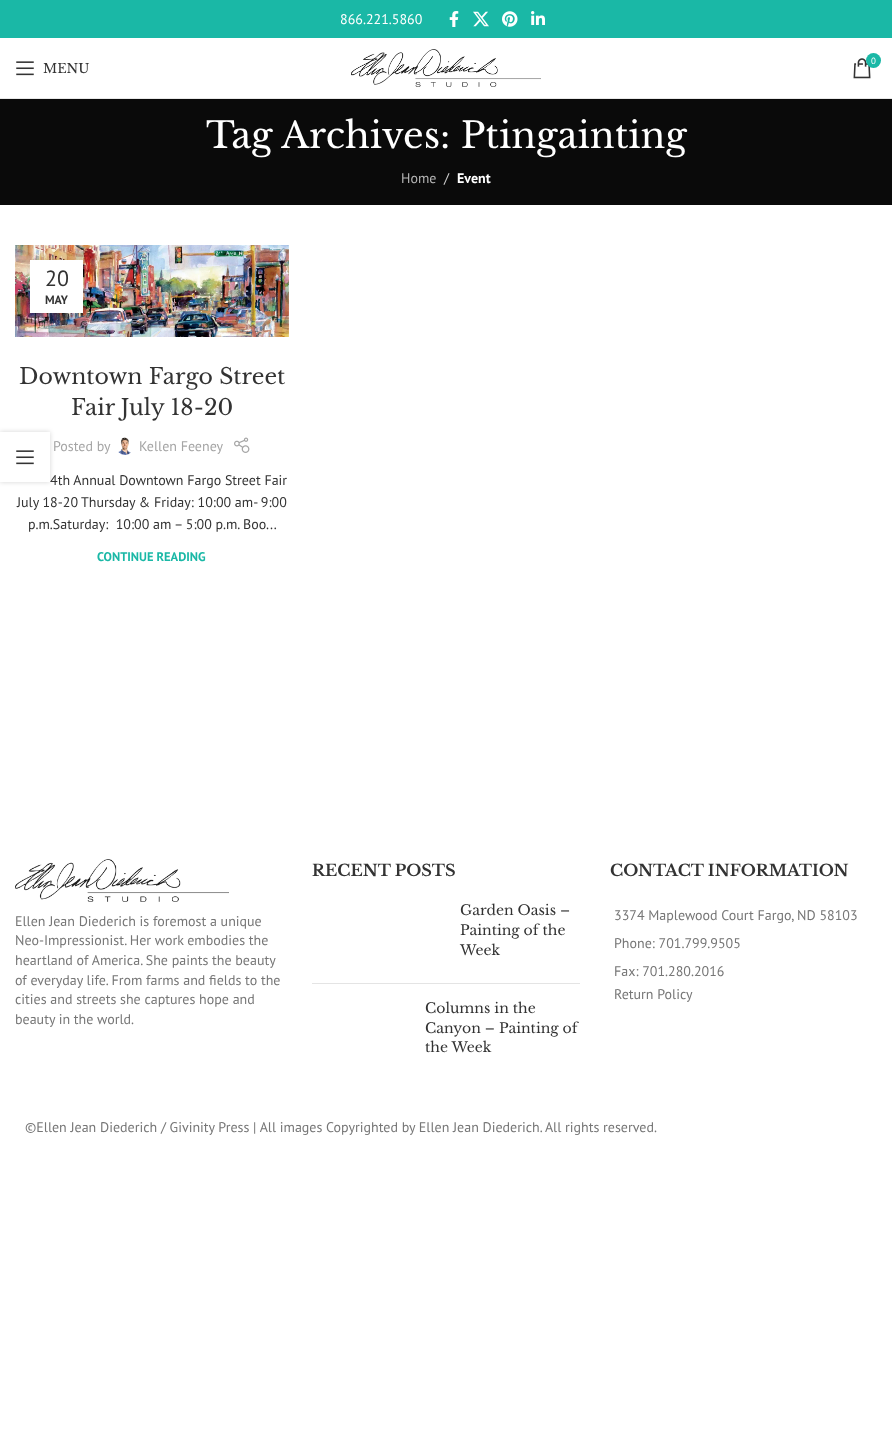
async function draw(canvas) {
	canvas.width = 892;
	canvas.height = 1440;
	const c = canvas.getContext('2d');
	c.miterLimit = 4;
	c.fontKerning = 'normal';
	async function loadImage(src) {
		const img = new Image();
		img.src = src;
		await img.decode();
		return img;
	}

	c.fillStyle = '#fff';
	c.fillRect(0, 0, 892, 1440);
	c.fillStyle = '#1ab8a6';
	c.fillRect(0, 0, 892, 38);
	c.font = '14px PT Sans';
	c.fillStyle = '#fff';
	c.fillText('866.221.5860', 340, 24);
	c.drawImage(await loadImage('img1.png'), 449, 11, 10, 16);
	c.drawImage(await loadImage('img2.png'), 473, 11, 16, 16);
	c.drawImage(await loadImage('img3.png'), 502, 11, 16, 16);
	c.drawImage(await loadImage('img4.png'), 531, 11, 14, 14);
	c.fillStyle = '#e8e8e8';
	c.fillRect(0, 98, 892, 1);
	c.drawImage(await loadImage('img5.png'), 351, 49, 190, 38);
	c.drawImage(await loadImage('img6.png'), 853, 58, 18, 21);
	c.fillStyle = '#1ab8a6';
	c.beginPath();
	c.arc(873.5, 60.5, 7.5, 0, 2 * Math.PI);
	c.fill();
	c.font = '9px PT Sans';
	c.fillStyle = '#fff';
	c.fillText('0', 871, 64);
	c.drawImage(await loadImage('img7.png'), 16, 61, 18, 15);
	c.font = '13px Libre Baskerville';
	c.fillStyle = '#333';
	c.fillText('MENU', 43, 73);
	c.fillStyle = '#0a0a0a';
	c.fillRect(0, 99, 892, 106);
	c.font = '36px Libre Baskerville';
	c.fillStyle = '#fff';
	c.fillText('Tag Archives: Ptingainting', 206, 148);
	c.font = '14px PT Sans';
	c.fillStyle = '#b6b6b6';
	c.fillText('Home', 401, 183);
	c.fillStyle = '#cecece';
	c.fillText('/', 444, 183);
	c.font = 'bold 14px PT Sans';
	c.fillStyle = '#fff';
	c.fillText('Event', 457, 183);
	c.drawImage(await loadImage('img8.png'), 15, 245, 274, 92);
	c.fillStyle = '#0000001a';
	c.filter = 'blur(4.5px)';
	c.beginPath();
	c.rect(30, 260, 53, 53);
	c.fill();
	c.filter = 'none';
	c.fillStyle = '#fff';
	c.fillRect(30, 260, 53, 53);
	c.font = '22px PT Sans';
	c.fillStyle = '#333';
	c.fillText('20', 45, 286);
	c.font = 'bold 12px PT Sans';
	c.fillText('MAY', 45, 304);
	c.font = '22px Libre Baskerville';
	c.fillText('Downtown Fargo Street', 19, 384);
	c.fillText('Fair July 18-20', 71, 415);
	c.font = '14px PT Sans';
	c.fillStyle = '#a5a5a5';
	c.fillText('Posted by', 53, 451);
	c.drawImage(await loadImage('img9.png'), 118, 437, 13, 18);
	c.fillText('Kellen Feeney', 139, 451);
	c.drawImage(await loadImage('img10.png'), 234, 437, 16, 16);
	c.fillStyle = '#333';
	for (const [text, x, y] of [
		['4th Annual Downtown Fargo Street Fair', 50, 485],
		['July 18-20', 17, 507],
		['Thursday & Friday: 10:00 am- 9:00', 81, 507],
		['p.m.Saturday:  10:00 am – 5:00 p.m. Boo...', 28, 529],
	]) {
		c.fillText(text, x, y);
	}
	c.font = 'bold 12.5px PT Sans';
	c.fillStyle = '#1ab8a6';
	c.fillText('CONTINUE READING', 97, 561);
	c.save();
	c.beginPath();
	c.moveTo(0, 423);
	c.lineTo(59, 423);
	c.lineTo(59, 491);
	c.lineTo(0, 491);
	c.closePath();
	c.moveTo(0, 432);
	c.lineTo(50, 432);
	c.lineTo(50, 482);
	c.lineTo(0, 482);
	c.closePath();
	c.clip('evenodd');
	c.fillStyle = '#0000002b';
	c.filter = 'blur(2.5px)';
	c.beginPath();
	c.rect(0, 432, 50, 50);
	c.fill();
	c.filter = 'none';
	c.restore();
	c.drawImage(await loadImage('img7.png'), 16, 450, 18, 15);
	c.drawImage(await loadImage('img11.png'), 15, 859, 214, 43);
	c.font = '14px PT Sans';
	c.fillStyle = '#767676';
	for (const [text, x, y] of [
		['Ellen Jean Diederich is foremost a unique', 15, 926],
		['Neo-Impressionist. Her work embodies the', 15, 945],
		['heartland of America. She paints the beauty', 15, 965],
		['of everyday life. From farms and fields to the', 15, 985],
		['cities and streets she captures hope and', 15, 1004],
		['beauty in the world.', 15, 1024],
	]) {
		c.fillText(text, x, y);
	}
	c.font = 'bold 16px Libre Baskerville';
	c.fillStyle = '#333';
	c.fillText('RECENT POSTS', 312, 876);
	c.fillStyle = '#e4e4e4';
	c.fillRect(312, 983, 268, 1);
	c.font = '14px Libre Baskerville';
	c.fillStyle = '#333';
	for (const [text, x, y] of [
		['Garden Oasis –', 460, 915],
		['Painting of the', 460, 935],
		['Week', 460, 955],
		['Columns in the', 425, 1013],
		['Canyon – Painting of', 425, 1033],
		['the Week', 425, 1052],
	]) {
		c.fillText(text, x, y);
	}
	c.font = 'bold 16px Libre Baskerville';
	c.fillText('CONTACT INFORMATION', 610, 876);
	c.font = '14px PT Sans';
	c.fillStyle = '#767676';
	for (const [text, x, y] of [
		['3374 Maplewood Court Fargo, ND 58103', 614, 920],
		['Phone: 701.799.9505', 614, 948],
		['Fax: 701.280.2016', 614, 976],
		['Return Policy', 614, 999],
		['©Ellen Jean Diederich / Givinity Press | All images Copyrighted by Ellen Jean Diederich. All rights reserved.', 25, 1132],
	]) {
		c.fillText(text, x, y);
	}
}

draw(document.querySelector('canvas'));
